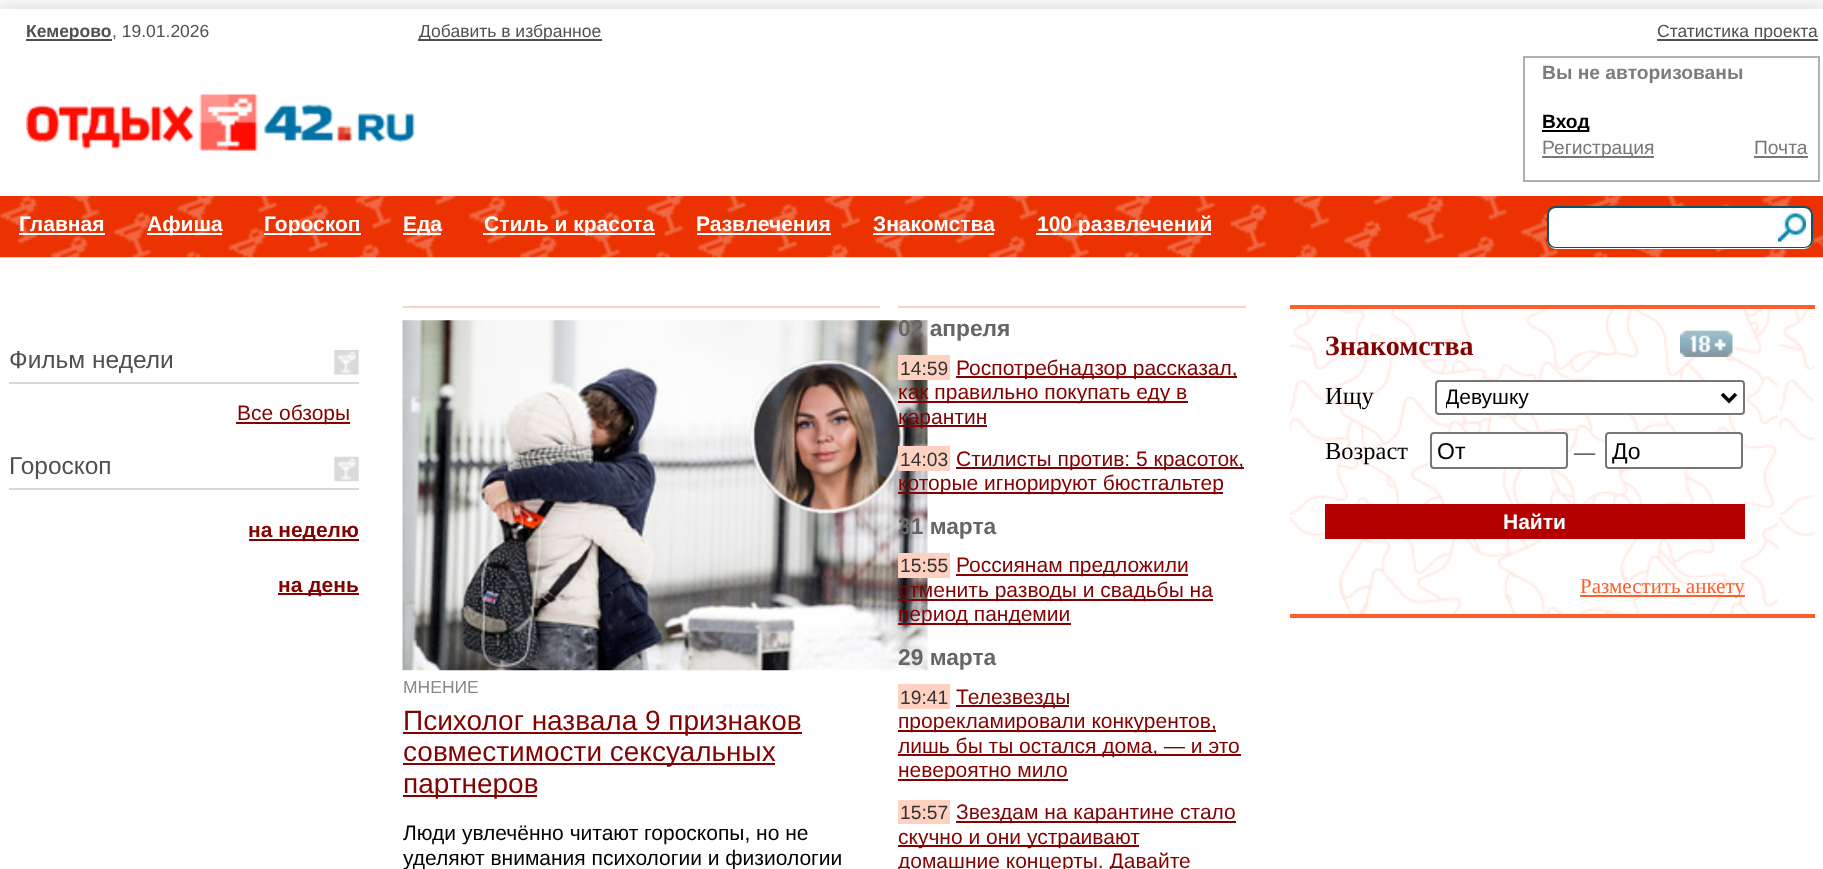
async function draw(canvas) {
	canvas.width = 1823;
	canvas.height = 869;
	const c = canvas.getContext('2d');
	c.miterLimit = 4;
	c.fontKerning = 'normal';
	async function loadImage(src) {
		const img = new Image();
		img.src = src;
		await img.decode();
		return img;
	}

	c.fillStyle = '#f6f6f6';
	c.fillRect(0, 0, 1823, 869);
	c.fillStyle = '#999';
	c.filter = 'blur(9px)';
	c.beginPath();
	c.rect(0, 18, 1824, 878);
	c.fill();
	c.filter = 'none';
	c.fillStyle = '#fff';
	c.fillRect(0, 9, 1823, 860);
	c.fillStyle = '#515151';
	c.fillRect(26, 39, 86, 2);
	c.font = 'bold 17.5px Liberation Sans';
	c.fillStyle = '#505050';
	c.fillText('Кемерово', 26, 37);
	c.font = '17.5px Liberation Sans';
	c.fillText(', 19.01.2026', 112, 37);
	c.fillStyle = '#515151';
	c.fillRect(418, 39, 184, 2);
	c.fillStyle = '#505050';
	c.fillText('Добавить в избранное', 419, 37);
	c.fillStyle = '#515151';
	c.fillRect(1657, 39, 161, 2);
	c.fillStyle = '#505050';
	c.fillText('Статистика проекта', 1657, 37);
	c.drawImage(await loadImage('img1.png'), 26, 94, 389, 57);
	c.strokeStyle = '#b0b0b0';
	c.lineWidth = 2;
	c.strokeRect(1524, 57, 295, 124);
	c.font = 'bold 19.25px Liberation Sans';
	c.fillStyle = '#7d7d7d';
	c.fillText('Вы не авторизованы', 1542, 79);
	c.fillStyle = '#000';
	c.fillRect(1542, 130, 47, 2);
	c.fillText('Вход', 1542, 128);
	c.fillStyle = '#777';
	c.fillRect(1542, 156, 112, 2);
	c.font = '19.25px Liberation Sans';
	c.fillText('Регистрация', 1542, 154);
	c.fillText('Почта', 1754, 154);
	c.fillRect(1754, 156, 54, 2);
	c.drawImage(await loadImage('img2.png'), 0, 196, 1823, 62);
	c.font = 'bold 21px Liberation Sans';
	c.fillStyle = '#fff';
	c.fillText('Главная', 19, 231);
	c.fillRect(19, 233, 86, 2);
	c.fillRect(147, 233, 75, 2);
	c.fillText('Афиша', 147, 231);
	c.fillRect(264, 233, 97, 2);
	c.fillText('Гороскоп', 264, 231);
	c.fillRect(403, 233, 38, 2);
	c.fillText('Еда', 403, 231);
	c.fillRect(483, 233, 172, 2);
	c.fillText('Стиль и красота', 484, 231);
	c.fillText('Развлечения', 696, 231);
	c.fillRect(697, 233, 134, 2);
	c.fillText('Знакомства', 873, 231);
	c.fillRect(873, 233, 121, 2);
	c.fillRect(1036, 233, 175, 2);
	c.fillText('100 развлечений', 1037, 231);
	c.beginPath();
	c.roundRect(1547, 207, 233, 42, [9, 0, 0, 9]);
	c.fill();
	c.fillStyle = '#0b5369';
	c.beginPath();
	c.moveTo(1556, 206);
	c.lineTo(1780, 206);
	c.lineTo(1780, 248);
	c.lineTo(1556, 248);
	c.bezierCurveTo(1551, 248, 1547, 245, 1547, 240);
	c.lineTo(1547, 215);
	c.bezierCurveTo(1547, 210, 1551, 206, 1556, 206);
	c.closePath();
	c.moveTo(1556, 208);
	c.lineTo(1780, 208);
	c.lineTo(1780, 247);
	c.lineTo(1556, 247);
	c.bezierCurveTo(1552, 247, 1549, 244, 1549, 240);
	c.lineTo(1549, 215);
	c.bezierCurveTo(1549, 211, 1552, 208, 1556, 208);
	c.closePath();
	c.fill('evenodd');
	c.fillStyle = '#fff';
	c.beginPath();
	c.roundRect(1778, 207, 35, 42, [0, 9, 9, 0]);
	c.fill();
	c.drawImage(await loadImage('img3.png'), 1778, 213, 28, 29);
	c.fillStyle = '#0b5369';
	c.beginPath();
	c.moveTo(1778, 206);
	c.lineTo(1804, 206);
	c.bezierCurveTo(1809, 206, 1813, 210, 1813, 215);
	c.lineTo(1813, 240);
	c.bezierCurveTo(1813, 245, 1809, 248, 1804, 248);
	c.lineTo(1778, 248);
	c.closePath();
	c.moveTo(1778, 208);
	c.lineTo(1804, 208);
	c.bezierCurveTo(1808, 208, 1811, 211, 1811, 215);
	c.lineTo(1811, 240);
	c.bezierCurveTo(1811, 244, 1808, 247, 1804, 247);
	c.lineTo(1778, 247);
	c.closePath();
	c.fill('evenodd');
	c.drawImage(await loadImage('img4.png'), 334, 350, 25, 25);
	c.fillStyle = '#d8d8d8';
	c.fillRect(9, 382, 350, 2);
	c.font = '24.5px Liberation Sans';
	c.fillStyle = '#505050';
	c.fillText('Фильм недели', 9, 368);
	c.fillStyle = '#830100';
	c.fillRect(236, 422, 114, 2);
	c.font = '21px Liberation Sans';
	c.fillText('Все обзоры', 237, 420);
	c.drawImage(await loadImage('img5.png'), 334, 456, 25, 26);
	c.fillStyle = '#d8d8d8';
	c.fillRect(9, 488, 350, 2);
	c.font = '24.5px Liberation Sans';
	c.fillStyle = '#505050';
	c.fillText('Гороскоп', 9, 474);
	c.fillStyle = '#830100';
	c.fillRect(249, 539, 110, 2);
	c.font = 'bold 21px Liberation Sans';
	c.fillText('на неделю', 248, 537);
	c.fillRect(278, 593, 81, 2);
	c.fillText('на день', 278, 592);
	c.fillStyle = '#ffd1c4';
	c.fillRect(403, 306, 477, 2);
	c.drawImage(await loadImage('img6.png'), 402, 320, 526, 351);
	c.font = '17.5px Liberation Sans';
	c.fillStyle = '#888';
	c.fillText('МНЕНИЕ', 403, 693);
	c.fillStyle = '#830100';
	c.fillRect(403, 732, 399, 2);
	c.font = '28px Liberation Sans';
	c.fillText('Психолог назвала 9 признаков', 403, 730);
	c.fillRect(403, 763, 372, 2);
	c.fillText('совместимости сексуальных', 403, 761);
	c.fillRect(403, 795, 134, 2);
	c.fillText('партнеров', 403, 793);
	c.font = '21px Liberation Sans';
	c.fillStyle = '#000';
	c.fillText('Люди увлечённо читают гороскопы, но не', 403, 840);
	c.fillText('уделяют внимания психологии и физиологии', 403, 865);
	c.fillStyle = '#ffd1c4';
	c.fillRect(898, 306, 348, 2);
	c.font = 'bold 22.75px Liberation Sans';
	c.fillStyle = '#666';
	c.fillText('02 апреля', 898, 336);
	c.fillStyle = '#ffd1c1';
	c.fillRect(898, 355, 52, 25);
	c.font = '19.25px Liberation Sans';
	c.fillStyle = '#333';
	c.fillText('14:59', 900, 375);
	c.fillStyle = '#830100';
	c.fillRect(956, 376, 281, 2);
	c.font = '21px Liberation Sans';
	c.fillText('Роспотребнадзор рассказал,', 956, 375);
	c.fillRect(898, 401, 290, 2);
	c.fillText('как правильно покупать еду в', 898, 399);
	c.fillRect(898, 425, 89, 2);
	c.fillText('карантин', 898, 424);
	c.fillStyle = '#ffd1c1';
	c.fillRect(898, 446, 52, 25);
	c.font = '19.25px Liberation Sans';
	c.fillStyle = '#333';
	c.fillText('14:03', 900, 466);
	c.fillStyle = '#830100';
	c.fillRect(956, 467, 288, 2);
	c.font = '21px Liberation Sans';
	c.fillText('Стилисты против: 5 красоток,', 956, 466);
	c.fillRect(898, 492, 325, 2);
	c.fillText('которые игнорируют бюстгальтер', 898, 490);
	c.font = 'bold 22.75px Liberation Sans';
	c.fillStyle = '#666';
	c.fillText('31 марта', 898, 534);
	c.fillStyle = '#ffd1c1';
	c.fillRect(898, 553, 52, 25);
	c.font = '19.25px Liberation Sans';
	c.fillStyle = '#333';
	c.fillText('15:55', 900, 572);
	c.fillStyle = '#830100';
	c.fillRect(956, 574, 232, 2);
	c.font = '21px Liberation Sans';
	c.fillText('Россиянам предложили', 956, 572);
	c.fillRect(898, 599, 315, 2);
	c.fillText('отменить разводы и свадьбы на', 898, 597);
	c.fillRect(898, 623, 173, 2);
	c.fillText('период пандемии', 898, 621);
	c.font = 'bold 22.75px Liberation Sans';
	c.fillStyle = '#666';
	c.fillText('29 марта', 898, 665);
	c.fillStyle = '#ffd1c1';
	c.fillRect(898, 684, 52, 25);
	c.font = '19.25px Liberation Sans';
	c.fillStyle = '#333';
	c.fillText('19:41', 900, 704);
	c.fillStyle = '#830100';
	c.fillRect(956, 705, 113, 2);
	c.font = '21px Liberation Sans';
	c.fillText('Телезвезды', 956, 704);
	c.fillRect(898, 730, 318, 2);
	c.fillText('прорекламировали конкурентов,', 898, 728);
	c.fillRect(898, 754, 343, 2);
	c.fillText('лишь бы ты остался дома, — и это', 898, 753);
	c.fillRect(898, 779, 170, 2);
	c.fillText('невероятно мило', 898, 777);
	c.fillStyle = '#ffd1c1';
	c.fillRect(898, 800, 52, 24);
	c.font = '19.25px Liberation Sans';
	c.fillStyle = '#333';
	c.fillText('15:57', 900, 819);
	c.fillStyle = '#830100';
	c.fillRect(956, 821, 280, 2);
	c.font = '21px Liberation Sans';
	c.fillText('Звездам на карантине стало', 956, 819);
	c.fillRect(898, 845, 241, 2);
	c.fillText('скучно и они устраивают', 898, 844);
	c.fillText('домашние концерты. Давайте', 898, 868);
	c.drawImage(await loadImage('img7.png'), 1290, 304, 525, 310);
	c.fillStyle = '#fd5e2b';
	c.fillRect(1290, 305, 525, 4);
	c.fillRect(1290, 614, 525, 4);
	c.font = 'bold 28px Liberation Serif';
	c.fillStyle = '#830100';
	c.fillText('Знакомства', 1325, 355);
	c.drawImage(await loadImage('img8.png'), 1680, 330, 53, 27);
	c.font = '24.5px Liberation Serif';
	c.fillStyle = '#000';
	c.fillText('Ищу', 1325, 404);
	c.fillStyle = '#fff';
	c.beginPath();
	c.roundRect(1436, 381, 308, 33, 3);
	c.fill();
	c.strokeStyle = '#767676';
	c.stroke();
	c.beginPath();
	c.moveTo(1722, 394);
	c.lineTo(1729, 401);
	c.lineTo(1736, 394);
	c.strokeStyle = '#000';
	c.lineWidth = 3.5;
	c.stroke();
	c.save();
	c.beginPath();
	c.rect(1446, 383, 267, 28);
	c.clip();
	c.font = '21px Liberation Sans';
	c.fillStyle = '#000';
	c.fillText('Девушку', 1445, 404);
	c.restore();
	c.fillStyle = '#000';
	c.fillText('Возраст', 1325, 459);
	c.fillStyle = '#fff';
	c.beginPath();
	c.roundRect(1431, 433, 136, 35, 3);
	c.fill();
	c.strokeStyle = '#767676';
	c.lineWidth = 2;
	c.stroke();
	c.font = '23px Liberation Sans';
	c.fillStyle = '#000';
	c.fillText('От', 1437, 459);
	c.font = '21px Liberation Serif';
	c.fillText('—', 1574, 459);
	c.fillStyle = '#fff';
	c.beginPath();
	c.roundRect(1606, 433, 136, 35, 3);
	c.fill();
	c.stroke();
	c.font = '23px Liberation Sans';
	c.fillStyle = '#000';
	c.fillText('До', 1612, 459);
	c.fillStyle = '#b40001';
	c.fillRect(1325, 504, 420, 35);
	c.font = 'bold 21px Liberation Sans';
	c.fillStyle = '#fff';
	c.fillText('Найти', 1503, 529);
	c.fillStyle = '#fd5e2b';
	c.fillRect(1580, 595, 165, 2);
	c.font = '21px Liberation Serif';
	c.fillText('Разместить анкету', 1580, 593);
}

draw(document.querySelector('canvas'));
